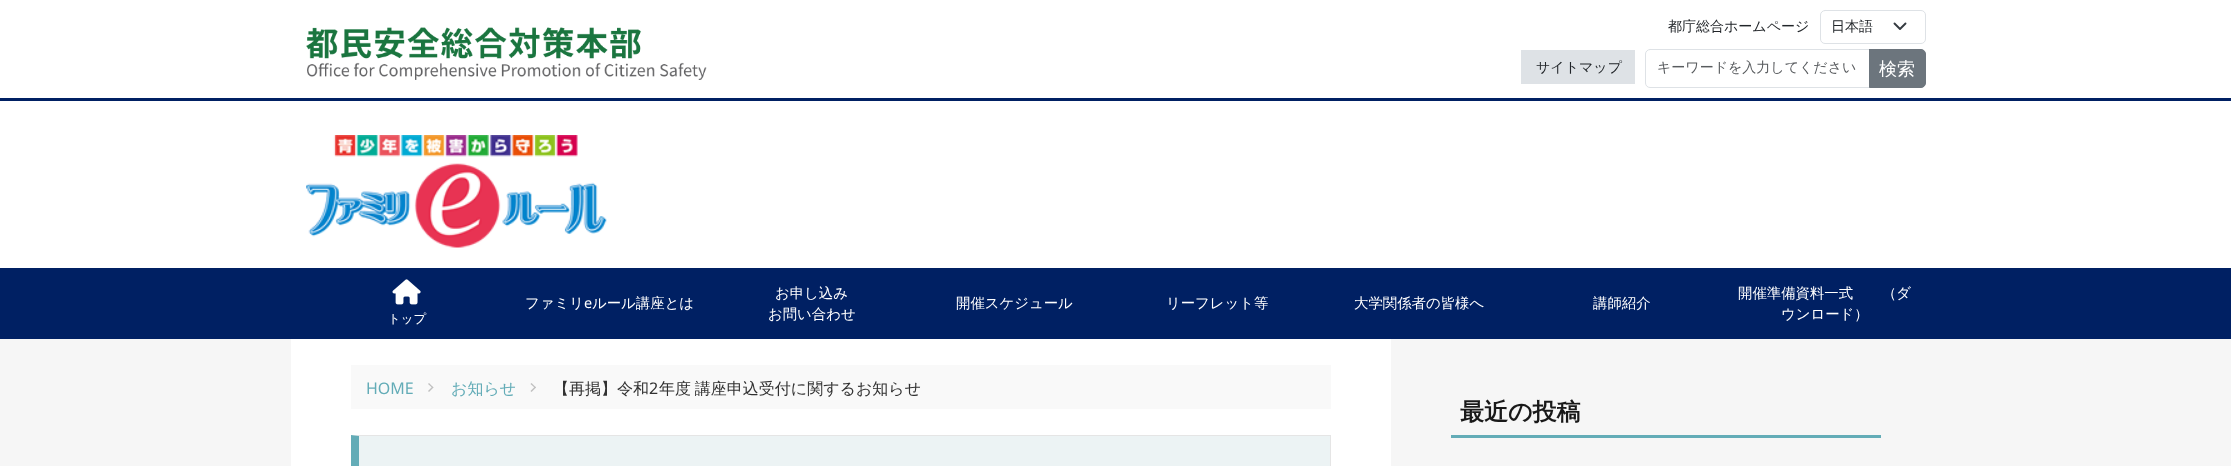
async function draw(canvas) {
	canvas.width = 2231;
	canvas.height = 466;
	const c = canvas.getContext('2d');
	c.miterLimit = 4;
	c.fontKerning = 'normal';
	async function loadImage(src) {
		const img = new Image();
		img.src = src;
		await img.decode();
		return img;
	}

	c.fillStyle = '#fff';
	c.fillRect(0, 0, 2231, 466);
	c.drawImage(await loadImage('img1.png'), 306, 27, 401, 53);
	c.font = '500 14px WenQuanYi Zen Hei';
	c.fillStyle = '#212529';
	c.fillText('都庁総合ホームページ', 1668, 31);
	c.beginPath();
	c.moveTo(1894.5, 23.5);
	c.lineTo(1900, 29);
	c.lineTo(1905.5, 23.5);
	c.strokeStyle = '#343a40';
	c.lineWidth = 1.9;
	c.lineCap = 'round';
	c.lineJoin = 'round';
	c.stroke();
	c.beginPath();
	c.roundRect(1820.5, 10.5, 105, 33, 4.5);
	c.strokeStyle = '#dee2e6';
	c.lineWidth = 1;
	c.lineJoin = 'miter';
	c.stroke();
	c.fillText('日本語', 1831, 31);
	c.fillStyle = '#dee2e6';
	c.fillRect(1521, 50, 114, 34);
	c.fillStyle = '#212529';
	c.fillText('サイトマップ', 1536, 72);
	c.beginPath();
	c.roundRect(1645.5, 49.5, 224, 38, [4.5, 0, 0, 4.5]);
	c.stroke();
	c.fillStyle = '#595c5f';
	c.fillText('キーワードを入力してください', 1657, 72);
	c.fillStyle = '#6c757d';
	c.beginPath();
	c.roundRect(1869.5, 49.5, 56, 38, [0, 4.5, 4.5, 0]);
	c.fill();
	c.strokeStyle = '#6c757d';
	c.stroke();
	c.font = '500 18px WenQuanYi Zen Hei';
	c.fillStyle = '#fff';
	c.fillText('検索', 1879, 75);
	c.fillStyle = '#002063';
	c.fillRect(0, 98, 2231, 3);
	c.drawImage(await loadImage('img2.png'), 306, 135, 301, 113);
	c.fillRect(0, 268, 2231, 71);
	c.font = '500 14.4px WenQuanYi Zen Hei';
	c.fillStyle = '#fff';
	c.fillText('ファミリ', 525, 308);
	c.font = '14.4px Noto Sans';
	c.fillText('e', 584, 308);
	c.font = '500 14.4px WenQuanYi Zen Hei';
	for (const [text, x, y] of [
		['ルール講座とは', 592, 308],
		['お申し込み', 775, 298],
		['お問い合わせ', 768, 319],
		['開催スケジュール', 956, 308],
		['リーフレット等', 1166, 308],
		['大学関係者の皆様へ', 1354, 308],
		['講師紹介', 1593, 308],
		['開催準備資料一式　　（ダ', 1738, 298],
		['ウンロード）', 1781, 319],
	]) {
		c.fillText(text, x, y);
	}
	c.drawImage(await loadImage('img3.png'), 392, 279, 29, 26);
	c.font = '500 12.5px WenQuanYi Zen Hei';
	c.fillText('トップ', 388, 323);
	for (const [x, y, w, h, color] of [
		[0, 339, 2231, 127, '#f6f6f6'],
		[291, 339, 1100, 127, '#fff'],
		[351, 365, 980, 44, '#f9f9f9'],
	]) {
		c.fillStyle = color;
		c.fillRect(x, y, w, h);
	}
	c.font = '16px Noto Sans';
	c.fillStyle = '#63acb7';
	c.fillText('HOME', 366, 394);
	c.fillStyle = '#bfbfbf';
	c.beginPath();
	c.moveTo(429, 383);
	c.lineTo(433.5, 387.5);
	c.lineTo(432.5, 388);
	c.lineTo(428, 384);
	c.closePath();
	c.fill();
	c.beginPath();
	c.moveTo(432.5, 386.5);
	c.lineTo(433.5, 387.5);
	c.lineTo(429, 392);
	c.lineTo(428, 391);
	c.closePath();
	c.fill();
	c.font = '500 16px WenQuanYi Zen Hei';
	c.fillStyle = '#63acb7';
	c.fillText('お知らせ', 451, 394);
	c.fillStyle = '#bfbfbf';
	c.beginPath();
	c.moveTo(531.5, 383);
	c.lineTo(536, 387.5);
	c.lineTo(535, 388);
	c.lineTo(530.5, 384);
	c.closePath();
	c.fill();
	c.beginPath();
	c.moveTo(535, 386.5);
	c.lineTo(536, 387.5);
	c.lineTo(531.5, 392);
	c.lineTo(530.5, 391);
	c.closePath();
	c.fill();
	c.fillStyle = '#313131';
	c.fillText('【再掲】令和', 553, 394);
	c.font = '16px Noto Sans';
	c.fillText('2', 649, 394);
	c.wordSpacing = '-1px';
	c.font = '500 16px WenQuanYi Zen Hei';
	c.fillText('年度 講座申込受付に関するお知らせ', 659, 394);
	c.fillStyle = '#ecf3f4';
	c.fillRect(359, 436, 971, 30);
	c.fillStyle = '#e5e5e5';
	c.beginPath();
	c.moveTo(351, 435);
	c.lineTo(1331, 435);
	c.lineTo(1330, 436);
	c.lineTo(359, 436);
	c.closePath();
	c.fill();
	c.fillRect(1330, 435, 1, 31);
	c.fillStyle = '#63acb7';
	c.beginPath();
	c.moveTo(351, 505);
	c.lineTo(351, 435);
	c.lineTo(359, 436);
	c.lineTo(359, 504);
	c.closePath();
	c.fill();
	c.fillRect(1451, 435, 430, 3);
	c.wordSpacing = '0px';
	c.font = 'bold 24px WenQuanYi Zen Hei';
	c.fillStyle = '#191919';
	c.fillText('最近の投稿', 1460, 420);
}

draw(document.querySelector('canvas'));
